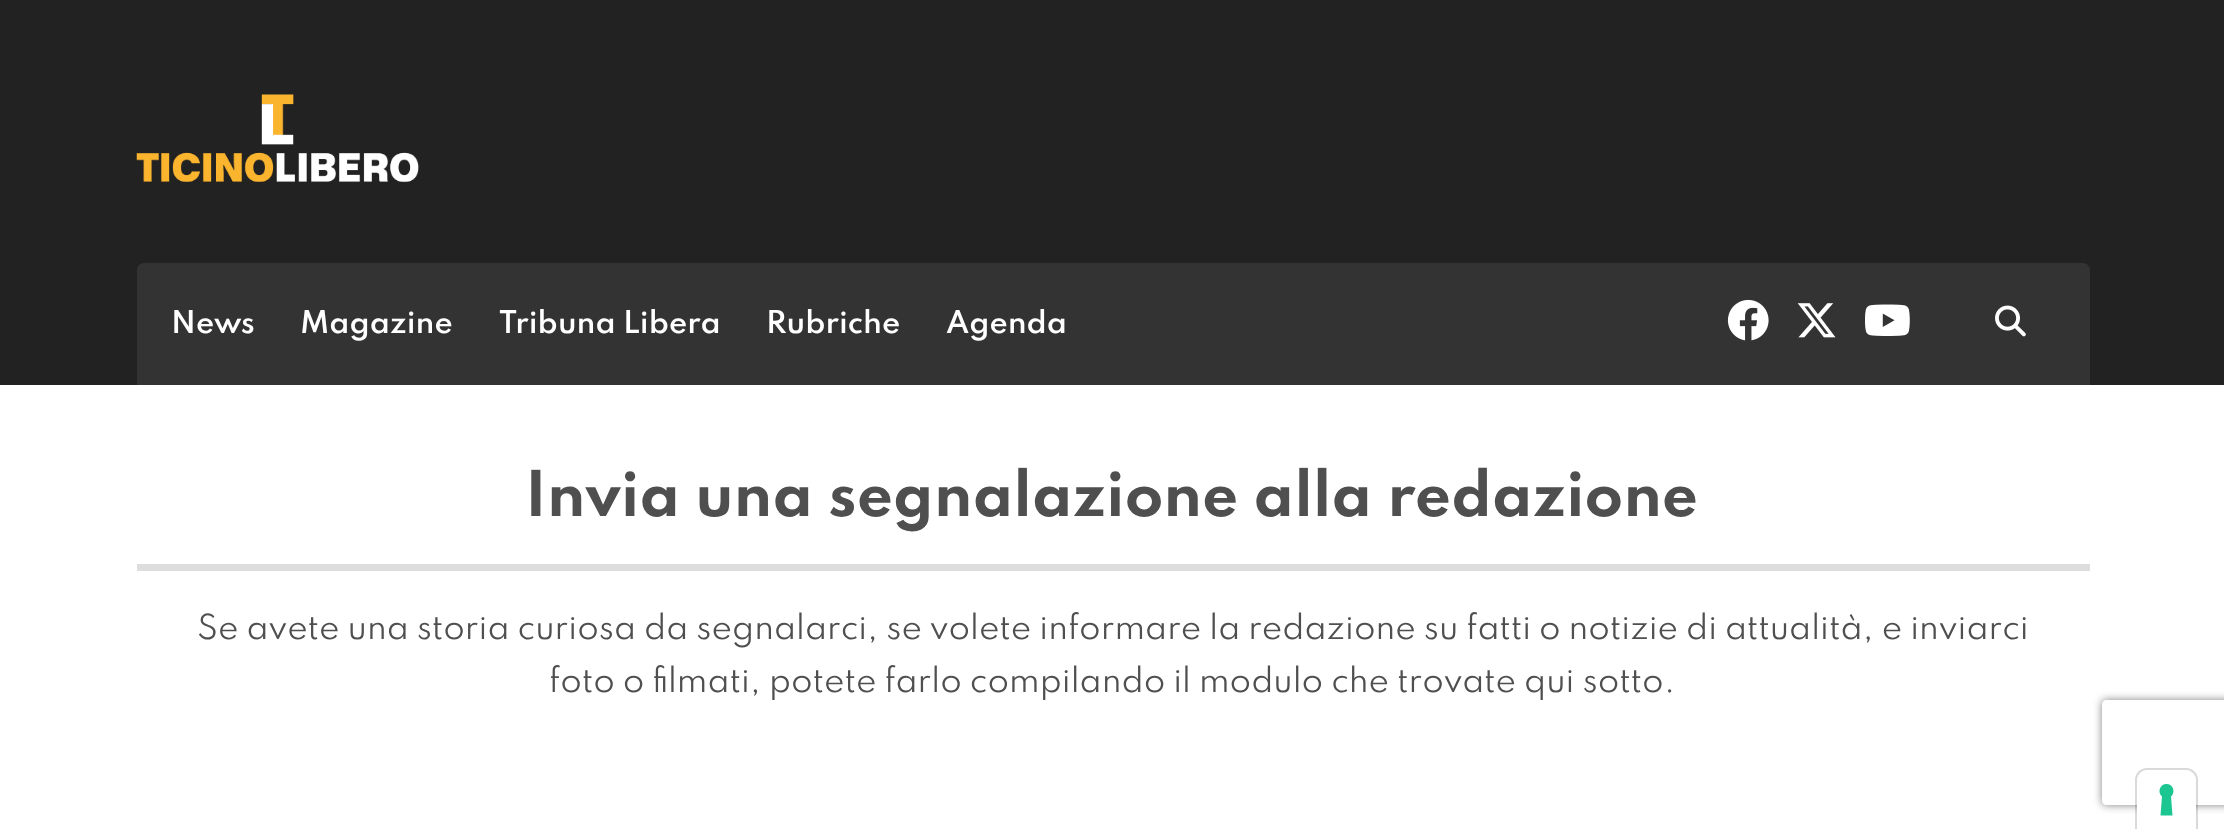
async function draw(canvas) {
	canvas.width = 2224;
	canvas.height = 829;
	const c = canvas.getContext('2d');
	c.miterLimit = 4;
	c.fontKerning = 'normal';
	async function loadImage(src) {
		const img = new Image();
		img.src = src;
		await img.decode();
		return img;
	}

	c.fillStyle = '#fff';
	c.fillRect(0, 0, 2224, 829);
	c.fillStyle = '#222';
	c.fillRect(0, 0, 2224, 385);
	c.drawImage(await loadImage('img1.png'), 136, 94, 283, 88);
	c.fillStyle = '#333';
	c.beginPath();
	c.roundRect(137, 263, 1953, 122, [7, 7, 0, 0]);
	c.fill();
	c.font = '600 28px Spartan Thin';
	c.fillStyle = '#fff';
	for (const [text, x, y] of [
		['News', 171, 333],
		['Magazine', 300, 333],
		['Tribuna Libera', 499, 333],
		['Rubriche', 766, 333],
		['Agenda', 946, 333],
	]) {
		c.fillText(text, x, y);
	}
	c.drawImage(await loadImage('img2.png'), 1727, 299, 42, 42);
	c.drawImage(await loadImage('img3.png'), 1797, 303, 39, 35);
	c.drawImage(await loadImage('img4.png'), 1865, 304, 45, 32);
	c.drawImage(await loadImage('img5.png'), 1995, 305, 31, 32);
	c.fillStyle = '#ddd';
	c.fillRect(137, 564, 1953, 7);
	c.font = 'bold 56px Spartan Thin';
	c.fillStyle = '#4f4f4f';
	c.fillText('Invia una segnalazione alla redazione', 525, 516);
	c.font = '30.8px Spartan Thin';
	c.fillText('Se avete una storia curiosa da segnalarci, se volete informare la redazione su fatti o notizie di attualità, e inviarci', 197, 639);
	c.fillText('foto o filmati, potete farlo compilando il modulo che trovate qui sotto.', 549, 692);
	c.save();
	c.beginPath();
	c.moveTo(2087, 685);
	c.lineTo(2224, 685);
	c.lineTo(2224, 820);
	c.lineTo(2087, 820);
	c.closePath();
	c.moveTo(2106, 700);
	c.lineTo(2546, 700);
	c.bezierCurveTo(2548, 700, 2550, 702, 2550, 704);
	c.lineTo(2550, 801);
	c.bezierCurveTo(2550, 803, 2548, 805, 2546, 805);
	c.lineTo(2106, 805);
	c.bezierCurveTo(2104, 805, 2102, 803, 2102, 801);
	c.lineTo(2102, 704);
	c.bezierCurveTo(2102, 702, 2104, 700, 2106, 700);
	c.closePath();
	c.clip('evenodd');
	c.fillStyle = '#808080';
	c.filter = 'blur(4.5px)';
	c.beginPath();
	c.roundRect(2102, 700, 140, 105, 4);
	c.fill();
	c.filter = 'none';
	c.restore();
	c.beginPath();
	c.moveTo(2147, 769);
	c.lineTo(2186, 769);
	c.bezierCurveTo(2192, 769, 2197, 774, 2197, 780);
	c.lineTo(2197, 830);
	c.lineTo(2136, 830);
	c.lineTo(2136, 780);
	c.bezierCurveTo(2136, 774, 2141, 769, 2147, 769);
	c.closePath();
	c.strokeStyle = '#00000026';
	c.lineWidth = 2;
	c.stroke();
	c.fillStyle = '#fff';
	c.beginPath();
	c.moveTo(2148, 770);
	c.lineTo(2185, 770);
	c.bezierCurveTo(2191, 770, 2196, 775, 2196, 781);
	c.lineTo(2196, 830);
	c.lineTo(2137, 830);
	c.lineTo(2137, 781);
	c.bezierCurveTo(2137, 775, 2142, 770, 2148, 770);
	c.closePath();
	c.fill();
	c.fillStyle = '#1cc691';
	c.beginPath();
	c.moveTo(2166.5, 784);
	c.bezierCurveTo(2173, 784, 2176, 792, 2171, 796.5);
	c.lineTo(2172.5, 815.5);
	c.lineTo(2160.5, 815.5);
	c.lineTo(2162, 796.5);
	c.bezierCurveTo(2157, 792, 2160, 784, 2166.5, 784);
	c.closePath();
	c.fill('evenodd');
}

draw(document.querySelector('canvas'));
